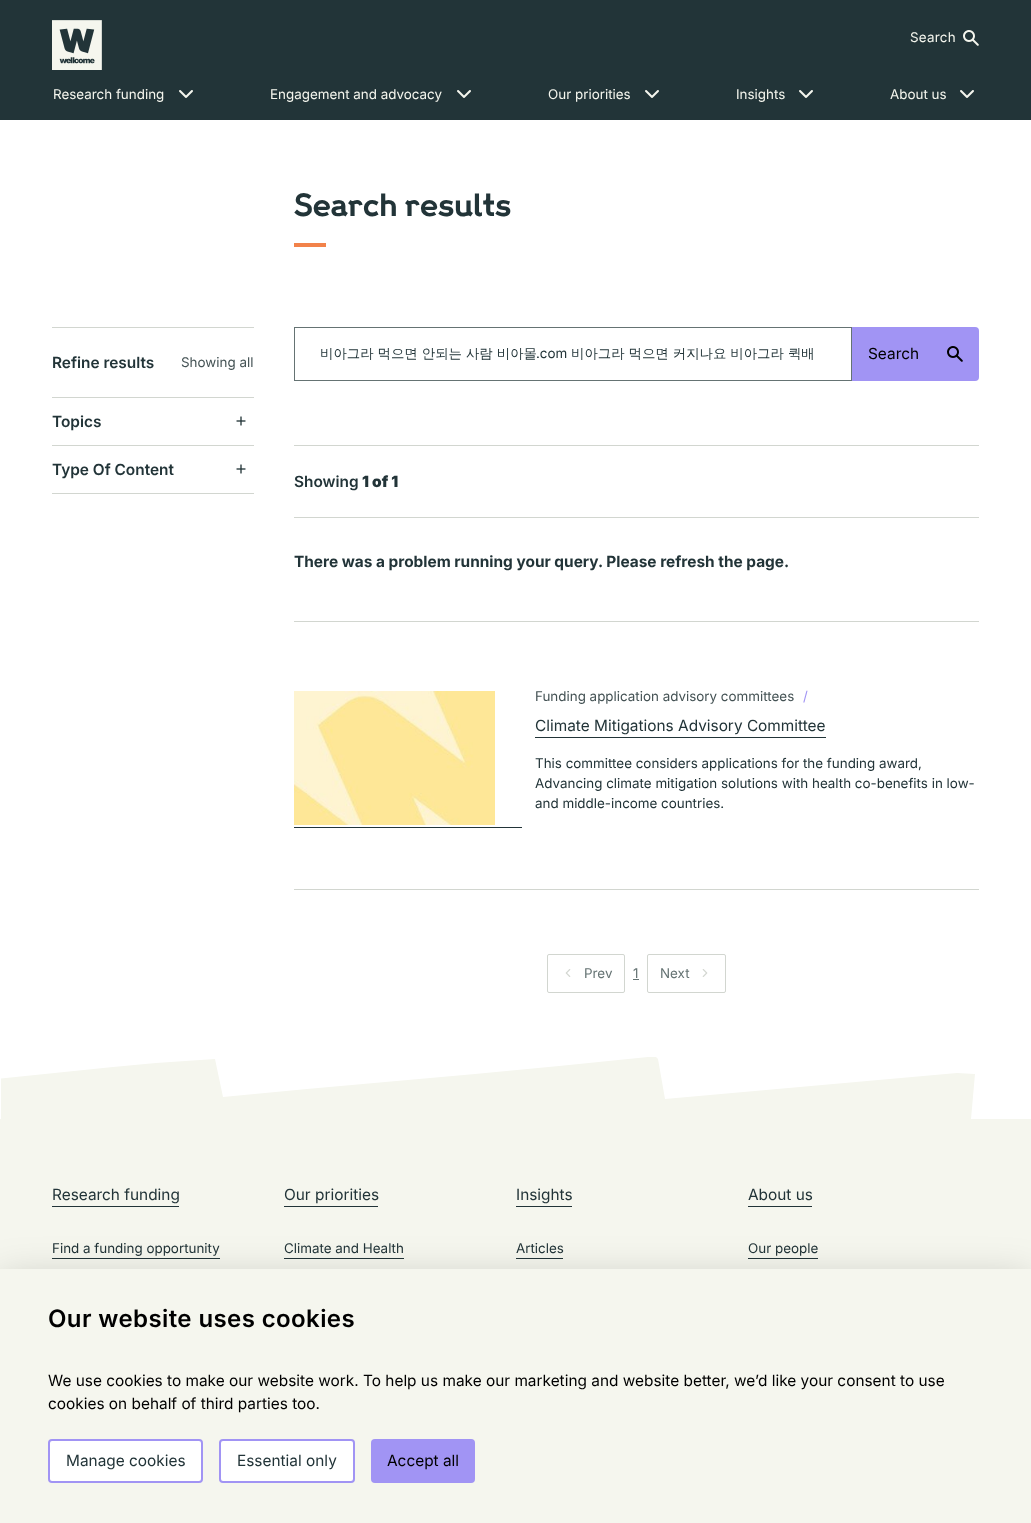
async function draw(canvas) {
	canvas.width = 1031;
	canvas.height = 1523;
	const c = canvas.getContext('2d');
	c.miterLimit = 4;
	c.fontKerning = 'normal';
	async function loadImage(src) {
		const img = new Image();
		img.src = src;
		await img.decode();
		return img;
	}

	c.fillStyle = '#fff';
	c.fillRect(0, 0, 1031, 1523);
	c.fillStyle = '#223438';
	c.fillRect(0, 0, 1031, 120);
	c.drawImage(await loadImage('img1.png'), 52, 20, 50, 50);
	c.letterSpacing = '0.25px';
	c.font = '13.4px Inter';
	c.fillStyle = '#f5f6ee';
	c.fillText('Search', 910, 42);
	c.drawImage(await loadImage('img2.png'), 963, 30, 16, 16);
	c.letterSpacing = '0px';
	c.fillText('Research funding', 53, 99);
	c.drawImage(await loadImage('img3.png'), 179, 90, 14, 8);
	c.fillText('Engagement and advocacy', 270, 99);
	c.drawImage(await loadImage('img3.png'), 457, 90, 14, 8);
	c.fillText('Our priorities', 548, 99);
	c.drawImage(await loadImage('img3.png'), 645, 90, 14, 8);
	c.fillText('Insights', 736, 99);
	c.drawImage(await loadImage('img3.png'), 799, 90, 14, 8);
	c.fillText('About us', 890, 99);
	c.drawImage(await loadImage('img3.png'), 960, 90, 14, 8);
	c.letterSpacing = '-0.5px';
	c.font = 'bold 28.5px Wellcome';
	c.fillStyle = '#223438';
	c.fillText('Search results', 294, 216);
	c.fillStyle = '#f2824a';
	c.fillRect(294, 243, 32, 4);
	c.fillStyle = '#d2d6d0';
	c.fillRect(52, 327, 202, 1);
	c.letterSpacing = '0px';
	c.font = '600 15.4px Inter';
	c.fillStyle = '#223438';
	c.fillText('Refine results', 52, 368);
	c.font = '13.4px Inter';
	c.fillStyle = '#445254';
	c.fillText('Showing all', 181, 367);
	c.fillStyle = '#d2d6d0';
	c.fillRect(52, 397, 202, 1);
	c.fillRect(52, 445, 202, 1);
	c.font = '600 15.4px Inter';
	c.fillStyle = '#223438';
	c.fillText('Topics', 52, 427);
	c.drawImage(await loadImage('img4.png'), 236, 416, 10, 10);
	c.fillStyle = '#d2d6d0';
	c.fillRect(52, 493, 202, 1);
	c.fillStyle = '#223438';
	c.fillText('Type Of Content', 52, 475);
	c.drawImage(await loadImage('img4.png'), 236, 464, 10, 10);
	c.strokeStyle = '#657373';
	c.strokeRect(294.5, 327.5, 557, 53);
	c.font = '500 13.4px WenQuanYi Zen Hei';
	c.fillText('비아그라 먹으면 안되는 사람 비아몰', 320, 358);
	c.font = '13.4px Inter';
	c.fillText('.com', 536, 358);
	c.font = '500 13.4px WenQuanYi Zen Hei';
	c.fillText('비아그라 먹으면 커지나요 비아그라 퀵배', 571, 358);
	c.fillStyle = '#a194f4';
	c.beginPath();
	c.roundRect(852, 327, 127, 54, [0, 4, 4, 0]);
	c.fill();
	c.font = '15.4px Inter';
	c.fillStyle = '#000';
	c.fillText('Search', 868, 359);
	c.drawImage(await loadImage('img5.png'), 947, 346, 16, 16);
	c.fillStyle = '#d2d6d0';
	c.fillRect(294, 445, 685, 1);
	c.font = '600 15.4px Inter';
	c.fillStyle = '#223438';
	c.fillText('Showing', 294, 487);
	c.font = '900 15.4px Inter';
	c.fillText('1 of 1', 362, 487);
	c.fillStyle = '#d2d6d0';
	c.fillRect(294, 517, 685, 1);
	c.font = 'bold 15.4px Inter';
	c.fillStyle = '#223438';
	c.fillText('There was a problem running your query. Please refresh the page.', 294, 567);
	c.fillStyle = '#d2d6d0';
	c.fillRect(294, 621, 685, 1);
	c.fillRect(294, 889, 685, 1);
	c.drawImage(await loadImage('img6.png'), 294, 691, 201, 134);
	c.font = '13.4px Inter';
	c.fillStyle = '#445254';
	c.fillText('Funding application advisory committees', 535, 701);
	c.fillStyle = '#a194f4';
	c.fillText('/', 803, 701);
	c.font = '15.4px Inter';
	c.fillStyle = '#223438';
	c.fillText('Climate Mitigations Advisory Committee', 535, 731);
	c.fillRect(294, 827, 228, 1);
	c.fillRect(535, 737, 291, 1);
	c.font = '13.4px Inter';
	for (const [text, x, y] of [
		['This committee considers applications for the funding award,', 535, 768],
		['Advancing climate mitigation solutions with health co-benefits in low-', 535, 788],
		['and middle-income countries.', 535, 808],
	]) {
		c.fillText(text, x, y);
	}
	c.beginPath();
	c.roundRect(547.5, 954.5, 77, 38, 1.5);
	c.strokeStyle = '#d2d6d0';
	c.stroke();
	c.drawImage(await loadImage('img7.png'), 565, 969, 6, 8);
	c.fillStyle = '#657373';
	c.fillText('Prev', 584, 978);
	c.fillText('1', 633, 978);
	c.fillRect(633, 979, 6, 1);
	c.beginPath();
	c.roundRect(647.5, 954.5, 78, 38, 1.5);
	c.stroke();
	c.fillText('Next', 660, 978);
	c.drawImage(await loadImage('img8.png'), 702, 969, 6, 8);
	c.fillStyle = '#f5f6ee';
	c.fillRect(0, 1119, 1031, 150);
	c.save();
	c.beginPath();
	c.rect(1, 1057, 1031, 62);
	c.clip();
	c.beginPath();
	c.moveTo(-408, 1119);
	c.lineTo(971, 1119);
	c.lineTo(975, 1074);
	c.lineTo(957, 1073);
	c.lineTo(665, 1099);
	c.lineTo(658, 1059);
	c.lineTo(656, 1057);
	c.lineTo(648, 1057);
	c.lineTo(559, 1066);
	c.bezierCurveTo(447, 1077, 335, 1086, 223, 1097);
	c.lineTo(215, 1059);
	c.lineTo(156, 1063);
	c.lineTo(113, 1067);
	c.lineTo(-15, 1080);
	c.lineTo(-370, 1115);
	c.closePath();
	c.fill('evenodd');
	c.restore();
	c.font = '15.4px Inter';
	c.fillStyle = '#223438';
	c.fillText('Research funding', 52, 1200);
	c.fillRect(52, 1206, 127, 1);
	c.font = '13.4px Inter';
	c.fillText('Find a funding opportunity', 52, 1253);
	c.fillRect(52, 1258, 168, 1);
	c.font = '15.4px Inter';
	c.fillText('Our priorities', 284, 1200);
	c.fillRect(284, 1206, 94, 1);
	c.font = '13.4px Inter';
	c.fillText('Climate and Health', 284, 1253);
	c.fillRect(284, 1258, 120, 1);
	c.font = '15.4px Inter';
	c.fillText('Insights', 516, 1200);
	c.fillRect(516, 1206, 56, 1);
	c.font = '13.4px Inter';
	c.fillText('Articles', 516, 1253);
	c.fillRect(516, 1258, 47, 1);
	c.font = '15.4px Inter';
	c.fillText('About us', 748, 1200);
	c.fillRect(748, 1206, 64, 1);
	c.font = '13.4px Inter';
	c.fillText('Our people', 748, 1253);
	c.fillRect(748, 1258, 70, 1);
	c.fillStyle = '#00000033';
	c.filter = 'blur(20px)';
	c.beginPath();
	c.rect(0, 1279, 1031, 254);
	c.fill();
	c.filter = 'none';
	c.fillStyle = '#f5f6ee';
	c.fillRect(0, 1269, 1031, 254);
	c.letterSpacing = '0.4px';
	c.font = '600 24px Inter';
	c.fillStyle = '#000';
	c.fillText('Our website uses cookies', 48, 1327);
	c.letterSpacing = '0px';
	c.font = '15.4px Inter';
	c.fillText('We use cookies to make our website work. To help us make our marketing and website better, we’d like your consent to use', 48, 1386);
	c.fillText('cookies on behalf of third parties too.', 48, 1409);
	c.fillStyle = '#fff';
	c.beginPath();
	c.roundRect(49, 1440, 153, 42, 3);
	c.fill();
	c.strokeStyle = '#a194f4';
	c.lineWidth = 2;
	c.stroke();
	c.fillStyle = '#223438';
	c.fillText('Manage cookies', 66, 1466);
	c.fillStyle = '#fff';
	c.beginPath();
	c.roundRect(220, 1440, 134, 42, 3);
	c.fill();
	c.stroke();
	c.fillStyle = '#223438';
	c.fillText('Essential only', 237, 1466);
	c.fillStyle = '#a194f4';
	c.beginPath();
	c.roundRect(371, 1439, 104, 44, 4);
	c.fill();
	c.fillStyle = '#000';
	c.fillText('Accept all', 387, 1466);
}

draw(document.querySelector('canvas'));
